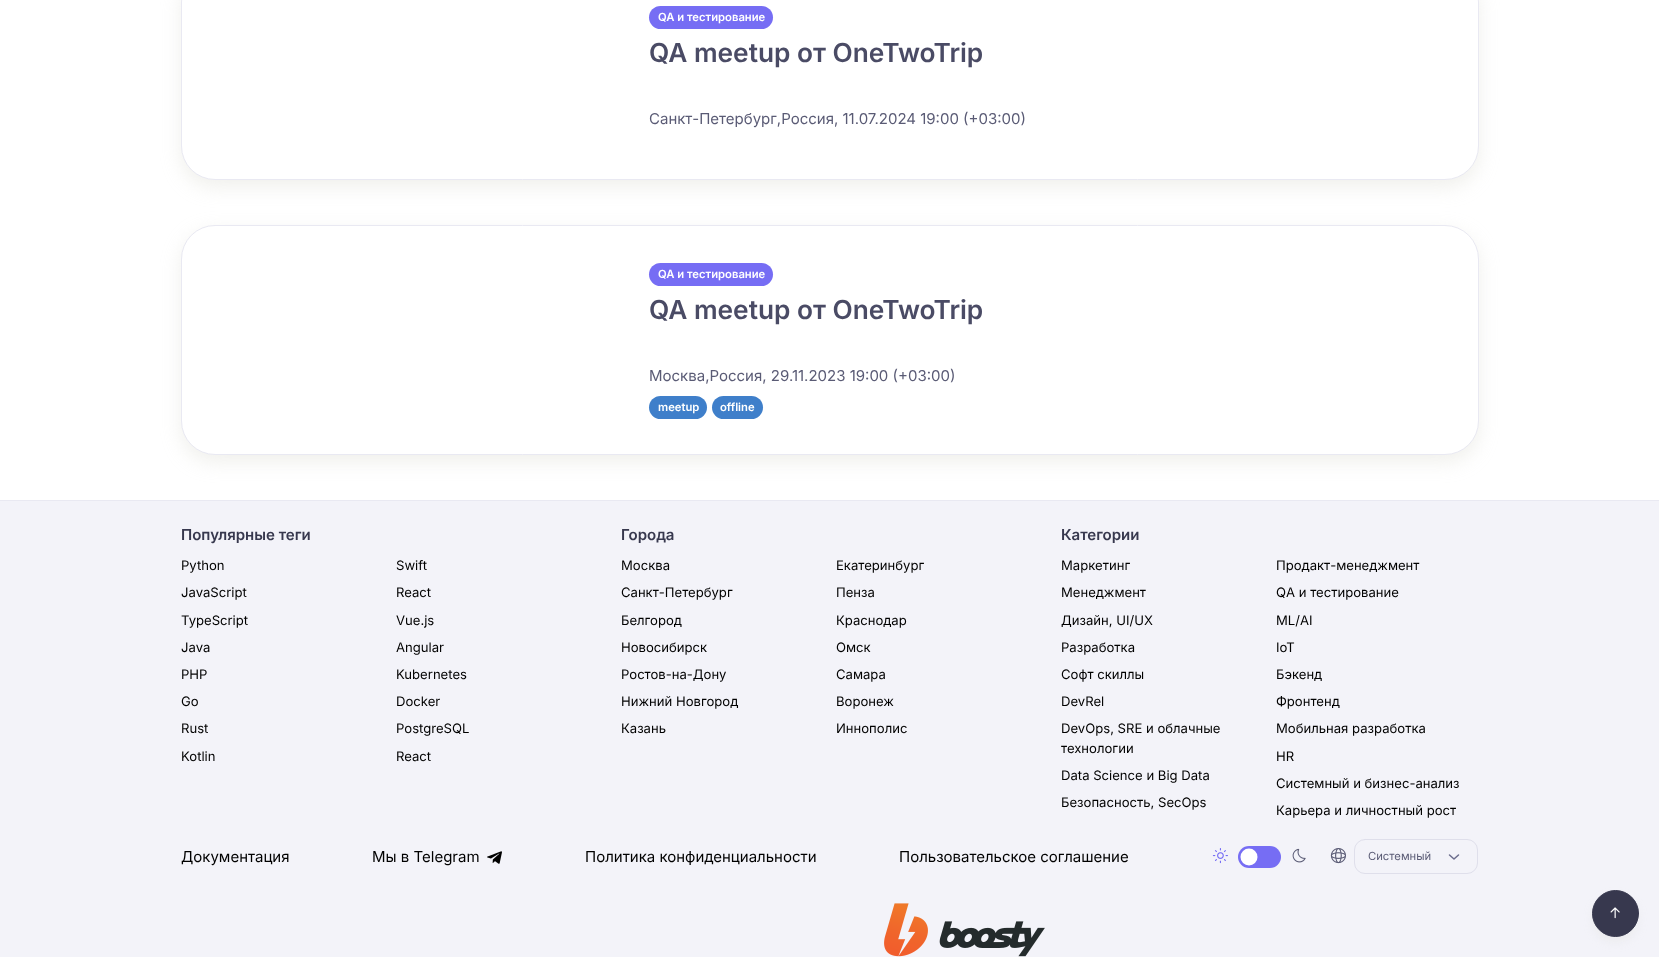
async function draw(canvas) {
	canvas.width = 1659;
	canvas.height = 957;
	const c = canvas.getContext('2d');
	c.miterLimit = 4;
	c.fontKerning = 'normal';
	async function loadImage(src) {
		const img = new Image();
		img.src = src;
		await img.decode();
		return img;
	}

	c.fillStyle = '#fff';
	c.fillRect(0, 0, 1659, 957);
	c.fillStyle = '#cfcfc452';
	c.filter = 'blur(9.5px)';
	c.beginPath();
	c.roundRect(181, -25, 1298, 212, 34);
	c.fill();
	c.filter = 'none';
	c.fillStyle = '#fff';
	c.beginPath();
	c.roundRect(181.5, -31.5, 1297, 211, 33.5);
	c.fill();
	c.strokeStyle = '#e9e9f2';
	c.stroke();
	c.fillStyle = '#766df4';
	c.beginPath();
	c.roundRect(649, 6, 124, 23, 11.5);
	c.fill();
	c.font = '600 11.25px Inter';
	c.fillStyle = '#fff';
	c.fillText('QA и тестирование', 658, 21);
	c.font = '600 26.25px Inter';
	c.fillStyle = '#4a4b65';
	c.fillText('QA meetup от OneTwoTrip', 649, 62);
	c.font = '15px Inter';
	c.fillStyle = '#5a5b75';
	c.fillText('Санкт-Петербург,Россия, 11.07.2024 19:00 (+03:00)', 649, 124);
	c.fillStyle = '#cfcfc452';
	c.filter = 'blur(9.5px)';
	c.beginPath();
	c.roundRect(181, 232, 1298, 230, 34);
	c.fill();
	c.filter = 'none';
	c.fillStyle = '#fff';
	c.beginPath();
	c.roundRect(181.5, 225.5, 1297, 229, 33.5);
	c.fill();
	c.stroke();
	c.fillStyle = '#766df4';
	c.beginPath();
	c.roundRect(649, 263, 124, 23, 11.5);
	c.fill();
	c.font = '600 11.25px Inter';
	c.fillStyle = '#fff';
	c.fillText('QA и тестирование', 658, 278);
	c.font = '600 26.25px Inter';
	c.fillStyle = '#4a4b65';
	c.fillText('QA meetup от OneTwoTrip', 649, 319);
	c.font = '15px Inter';
	c.fillStyle = '#5a5b75';
	c.fillText('Москва,Россия, 29.11.2023 19:00 (+03:00)', 649, 381);
	c.fillStyle = '#3f7fca';
	c.beginPath();
	c.roundRect(649, 396, 58, 23, 11.5);
	c.fill();
	c.font = '600 11.25px Inter';
	c.fillStyle = '#fff';
	c.fillText('meetup', 658, 411);
	c.fillStyle = '#3f7fca';
	c.beginPath();
	c.roundRect(712, 396, 51, 23, 11.5);
	c.fill();
	c.fillStyle = '#fff';
	c.fillText('offline', 720, 411);
	c.fillStyle = '#f3f3f9';
	c.fillRect(0, 501, 1659, 456);
	c.fillStyle = '#e9e9f2';
	c.fillRect(0, 500, 1659, 1);
	c.font = '600 15px Inter';
	c.fillStyle = '#37384e';
	c.fillText('Популярные теги', 181, 540);
	c.font = '13.1px Inter';
	c.fillStyle = '#000';
	for (const [text, x, y] of [
		['Python', 181, 570],
		['Swift', 396, 570],
		['JavaScript', 181, 597],
		['React', 396, 597],
		['TypeScript', 181, 625],
		['Vue.js', 396, 625],
		['Java', 181, 652],
		['Angular', 396, 652],
		['PHP', 181, 679],
		['Kubernetes', 396, 679],
		['Go', 181, 706],
		['Docker', 396, 706],
		['Rust', 181, 733],
		['PostgreSQL', 396, 733],
		['Kotlin', 181, 761],
		['React', 396, 761],
	]) {
		c.fillText(text, x, y);
	}
	c.font = '600 15px Inter';
	c.fillStyle = '#37384e';
	c.fillText('Города', 621, 540);
	c.font = '13.1px Inter';
	c.fillStyle = '#000';
	for (const [text, x, y] of [
		['Москва', 621, 570],
		['Екатеринбург', 836, 570],
		['Санкт-Петербург', 621, 597],
		['Пенза', 836, 597],
		['Белгород', 621, 625],
		['Краснодар', 836, 625],
		['Новосибирск', 621, 652],
		['Омск', 836, 652],
		['Ростов-на-Дону', 621, 679],
		['Самара', 836, 679],
		['Нижний Новгород', 621, 706],
		['Воронеж', 836, 706],
		['Казань', 621, 733],
		['Иннополис', 836, 733],
	]) {
		c.fillText(text, x, y);
	}
	c.font = '600 15px Inter';
	c.fillStyle = '#37384e';
	c.fillText('Категории', 1061, 540);
	c.font = '13.1px Inter';
	c.fillStyle = '#000';
	for (const [text, x, y] of [
		['Маркетинг', 1061, 570],
		['Продакт-менеджмент', 1276, 570],
		['Менеджмент', 1061, 597],
		['QA и тестирование', 1276, 597],
		['Дизайн, UI/UX', 1061, 625],
		['ML/AI', 1276, 625],
		['Разработка', 1061, 652],
		['IoT', 1276, 652],
		['Софт скиллы', 1061, 679],
		['Бэкенд', 1276, 679],
		['DevRel', 1061, 706],
		['Фронтенд', 1276, 706],
		['DevOps, SRE и облачные', 1061, 733],
		['технологии', 1061, 753],
		['Мобильная разработка', 1276, 733],
		['HR', 1276, 761],
		['Data Science и Big Data', 1061, 780],
		['Системный и бизнес-анализ', 1276, 788],
		['Безопасность, SecOps', 1061, 807],
		['Карьера и личностный рост', 1276, 815],
	]) {
		c.fillText(text, x, y);
	}
	c.font = '15px Inter';
	c.fillText('Документация', 181, 862);
	c.fillText('Мы в Telegram', 372, 862);
	c.drawImage(await loadImage('img1.png'), 487, 851, 15, 13);
	c.fillText('Политика конфиденциальности', 585, 862);
	c.fillText('Пользовательское соглашение', 899, 862);
	c.drawImage(await loadImage('img2.png'), 1212, 848, 16, 16);
	c.fillStyle = '#766df4';
	c.beginPath();
	c.roundRect(1238, 846, 43, 22, 11);
	c.fill();
	c.fillStyle = '#fff';
	c.beginPath();
	c.arc(1249, 857, 8.5, 0, 2 * Math.PI);
	c.fill();
	c.drawImage(await loadImage('img3.png'), 1292, 848, 14, 15);
	c.drawImage(await loadImage('img4.png'), 1330, 848, 16, 16);
	c.beginPath();
	c.moveTo(1449.5, 855);
	c.lineTo(1454, 859);
	c.lineTo(1458.5, 855);
	c.strokeStyle = '#6b6c8c';
	c.lineWidth = 1.5;
	c.lineCap = 'round';
	c.lineJoin = 'round';
	c.stroke();
	c.beginPath();
	c.roundRect(1354.5, 839.5, 123, 34, 10.5);
	c.strokeStyle = '#dfdfeb';
	c.lineWidth = 1;
	c.lineJoin = 'miter';
	c.stroke();
	c.font = '11.25px Inter';
	c.fillStyle = '#5a5b75';
	c.fillText('Системный', 1368, 860);
	c.drawImage(await loadImage('img5.png'), 884, 903, 161, 54);
	c.fillStyle = '#cfcfc43d';
	c.filter = 'blur(5.5px)';
	c.beginPath();
	c.roundRect(1594, 898, 43, 43, 21.5);
	c.fill();
	c.filter = 'none';
	c.fillStyle = '#37384e';
	c.beginPath();
	c.arc(1615.5, 913.5, 23, 0, 2 * Math.PI);
	c.fill();
	c.strokeStyle = '#37384e';
	c.stroke();
	c.drawImage(await loadImage('img6.png'), 1610, 907, 10, 12);
}

draw(document.querySelector('canvas'));
